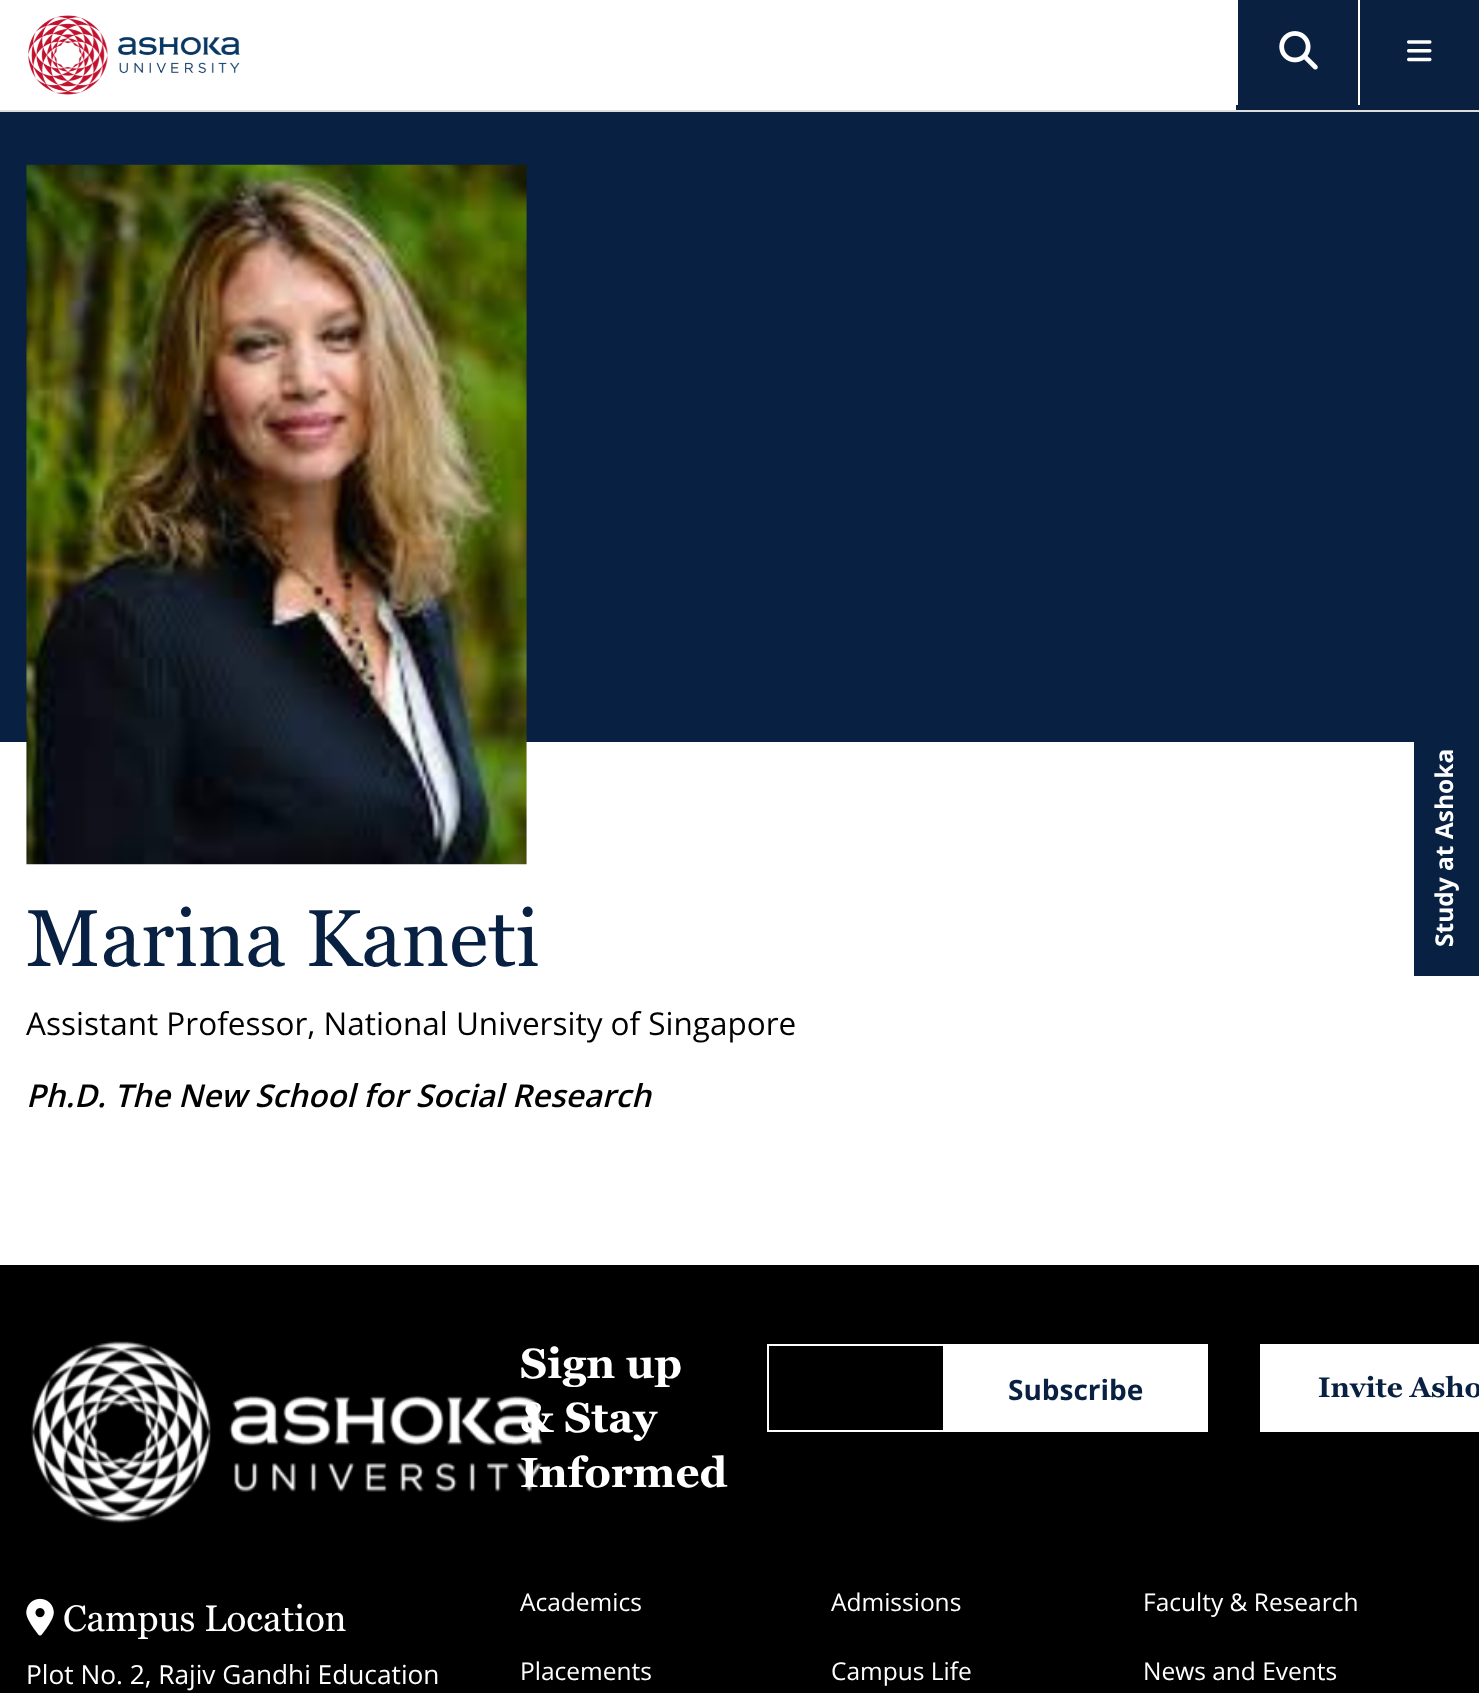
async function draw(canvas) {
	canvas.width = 1479;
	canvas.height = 1693;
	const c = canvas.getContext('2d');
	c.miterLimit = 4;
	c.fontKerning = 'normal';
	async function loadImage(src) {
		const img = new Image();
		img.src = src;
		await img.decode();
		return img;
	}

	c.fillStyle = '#fff';
	c.fillRect(0, 0, 1479, 1693);
	c.fillStyle = '#ddd';
	c.fillRect(0, 110, 1479, 2);
	c.drawImage(await loadImage('img1.png'), 28, 15, 212, 80);
	c.fillStyle = '#092041';
	c.fillRect(1236, 0, 243, 110);
	c.fillStyle = '#fff';
	c.fillRect(1236, 0, 2, 105);
	c.drawImage(await loadImage('img2.png'), 1279, 31, 39, 39);
	c.fillRect(1358, 0, 2, 105);
	c.drawImage(await loadImage('img3.png'), 1407, 40, 25, 22);
	c.fillStyle = '#082041';
	c.fillRect(1414, 742, 65, 234);
	c.font = 'bold 24.5px Open Sans';
	c.fillStyle = '#fff';
	c.save();
	c.translate(1453, 947);
	c.rotate(-90 * Math.PI / 180);
	c.fillText('Study at Ashoka', 0, 0);
	c.restore();
	c.fillStyle = '#082041';
	c.fillRect(0, 112, 1479, 630);
	c.drawImage(await loadImage('img4.png'), 26, 164, 501, 701);
	c.font = '80.5px Georgia';
	c.fillText('Marina Kaneti', 26, 966);
	c.font = '31.5px Open Sans';
	c.fillStyle = '#000';
	c.fillText('Assistant Professor, National University of Singapore', 26, 1035);
	c.font = 'italic 600 31.5px Open Sans';
	c.fillText('Ph.D. The New School for Social Research', 26, 1107);
	c.fillRect(0, 1265, 1479, 428);
	c.drawImage(await loadImage('img5.png'), 31, 1341, 512, 183);
	c.drawImage(await loadImage('img6.png'), 26, 1598, 28, 38);
	c.font = '36.75px Georgia';
	c.fillStyle = '#fff';
	c.fillText('Campus Location', 63, 1631);
	c.font = '26.25px Open Sans';
	c.fillText('Plot No. 2, Rajiv Gandhi Education', 26, 1684);
	c.font = 'bold 42px Georgia';
	for (const [text, x, y] of [
		['Sign up', 520, 1378],
		['& Stay', 520, 1432],
		['Informed', 520, 1487],
	]) {
		c.fillText(text, x, y);
	}
	c.strokeStyle = '#fff';
	c.lineWidth = 2;
	c.strokeRect(768, 1345, 176, 86);
	c.fillRect(945, 1344, 263, 88);
	c.font = 'bold 28px Open Sans';
	c.fillStyle = '#082041';
	c.fillText('Subscribe', 1008, 1400);
	c.fillStyle = '#fff';
	c.fillRect(1260, 1344, 219, 88);
	c.font = 'bold 28px Georgia';
	c.fillStyle = '#082041';
	c.fillText('Invite Asho', 1318, 1397);
	c.font = '24.5px Open Sans';
	c.fillStyle = '#fff';
	for (const [text, x, y] of [
		['Academics', 520, 1611],
		['Admissions', 831, 1611],
		['Faculty & Research', 1143, 1611],
		['Placements', 520, 1680],
		['Campus Life', 831, 1680],
		['News and Events', 1143, 1680],
	]) {
		c.fillText(text, x, y);
	}
}

draw(document.querySelector('canvas'));
